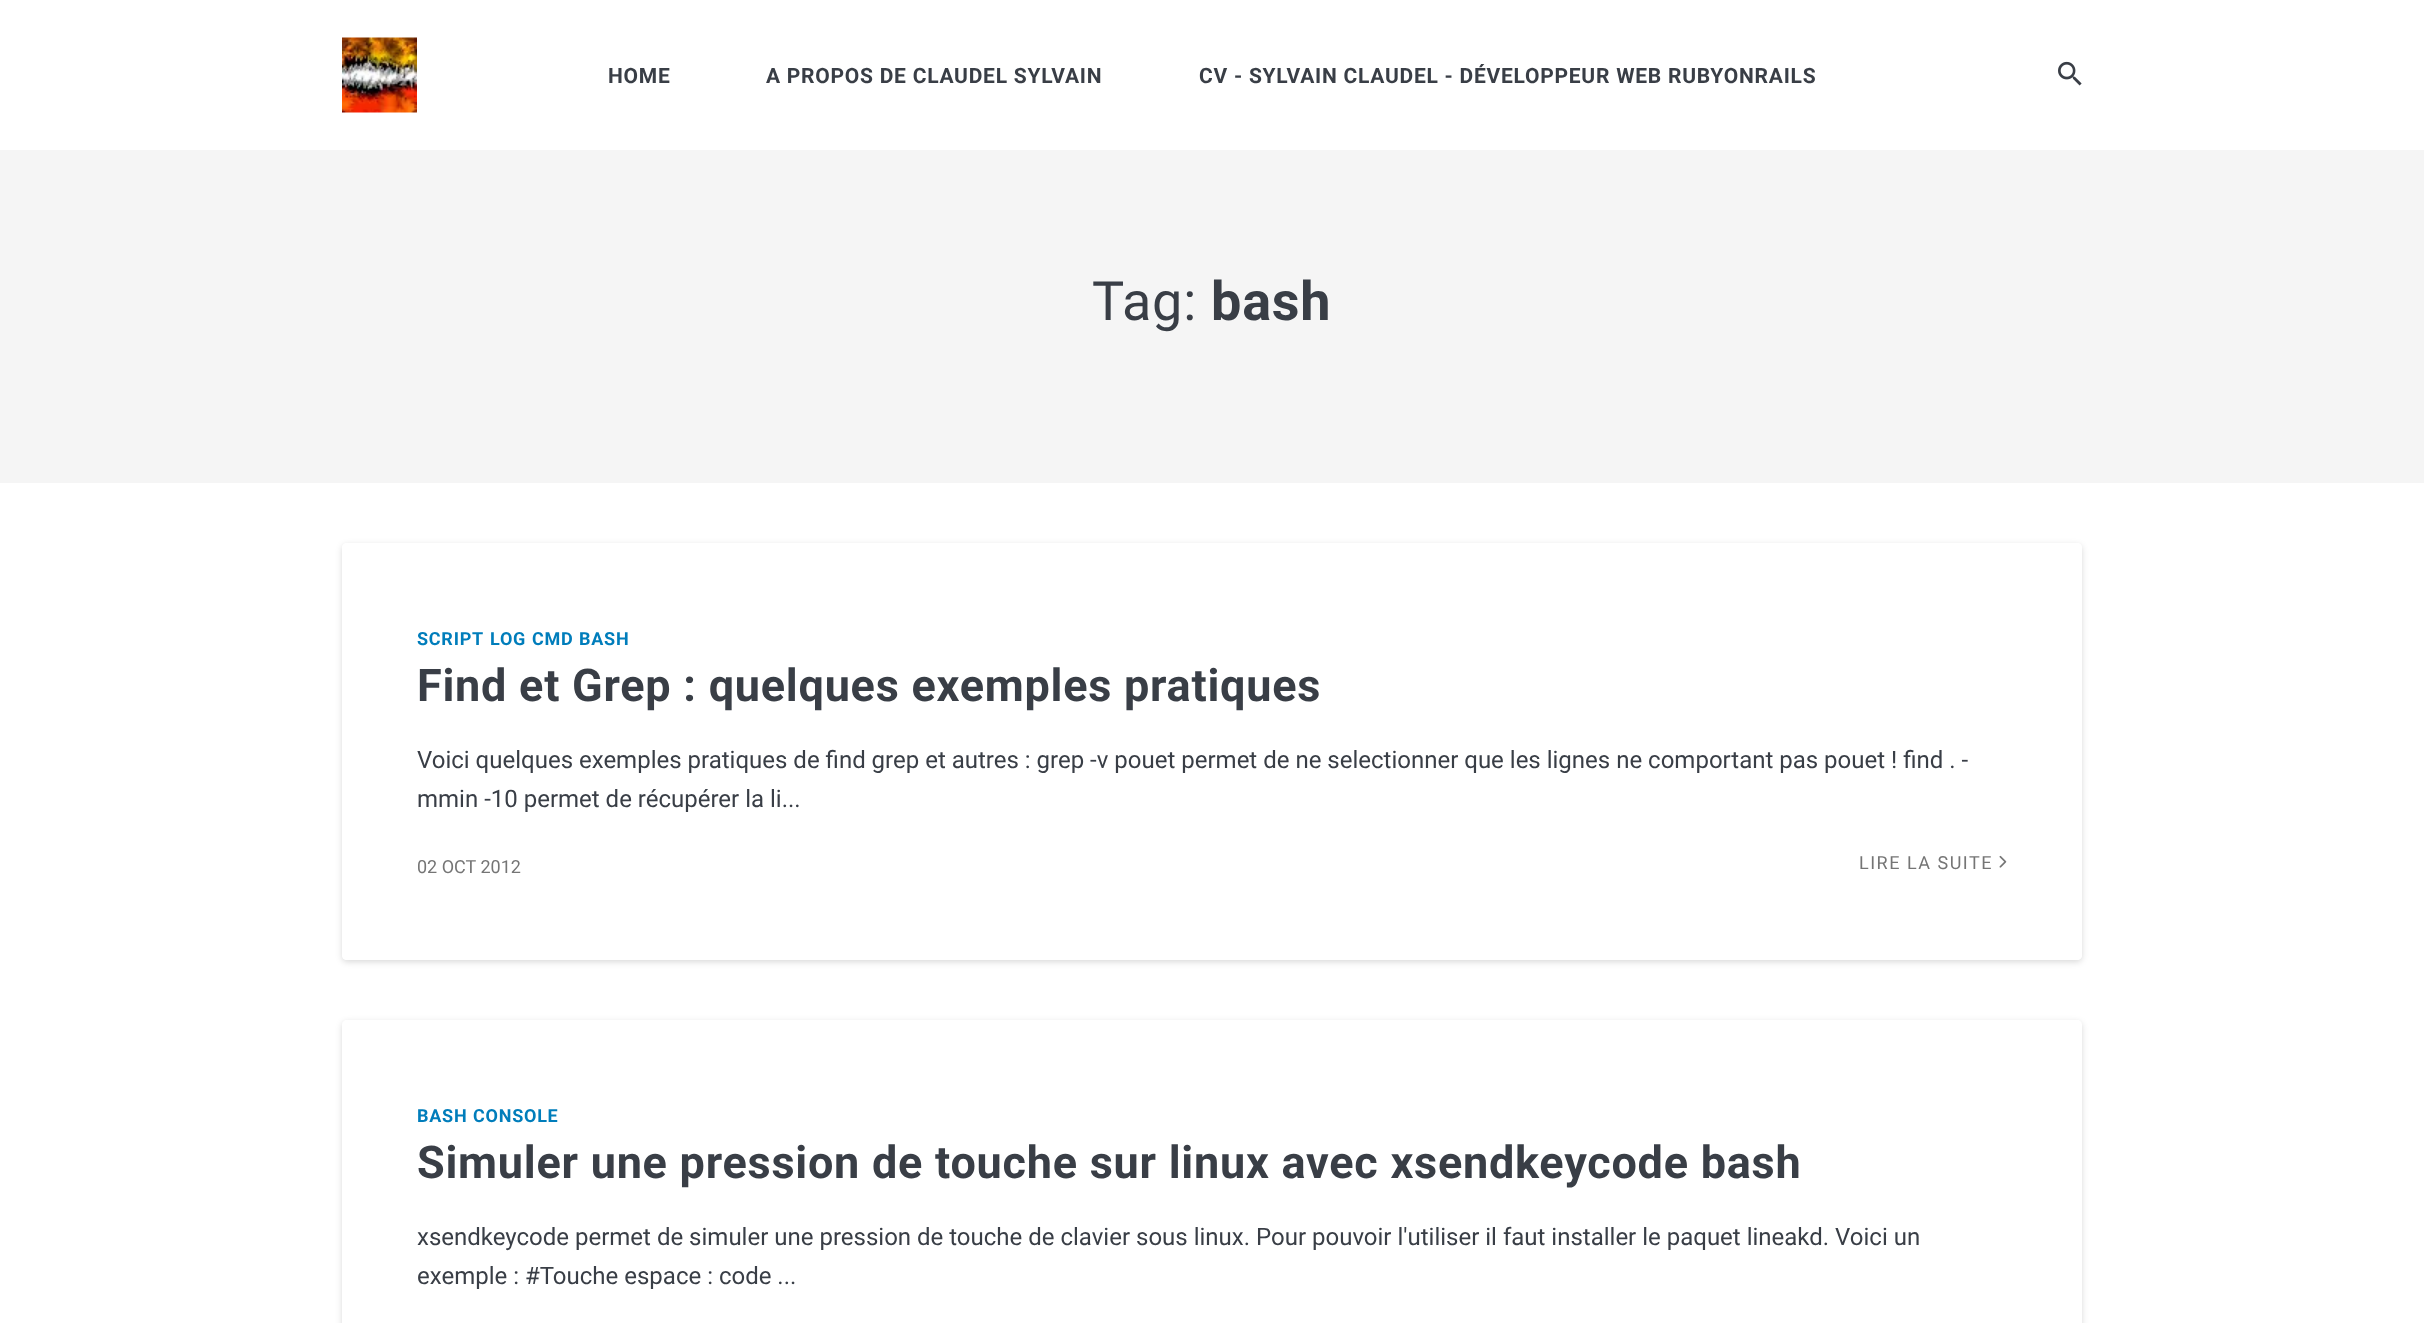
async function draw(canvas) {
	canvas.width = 2424;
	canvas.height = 1323;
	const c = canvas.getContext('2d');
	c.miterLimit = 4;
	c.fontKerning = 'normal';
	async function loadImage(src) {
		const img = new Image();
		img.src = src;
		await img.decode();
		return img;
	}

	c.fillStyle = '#fff';
	c.fillRect(0, 0, 2424, 1323);
	c.drawImage(await loadImage('img1.png'), 342, 37, 75, 76);
	c.letterSpacing = '0.75px';
	c.font = 'bold 21px Roboto';
	c.fillStyle = '#393e46';
	for (const [text, x, y] of [
		['HOME', 608, 83],
		['A PROPOS DE CLAUDEL SYLVAIN', 766, 83],
		['CV - SYLVAIN CLAUDEL - DÉVELOPPEUR WEB RUBYONRAILS', 1199, 83],
	]) {
		c.fillText(text, x, y);
	}
	c.drawImage(await loadImage('img2.png'), 2058, 61, 24, 25);
	c.fillStyle = '#f5f5f5';
	c.fillRect(0, 150, 2424, 333);
	c.font = '54px Roboto';
	c.fillStyle = '#393e46';
	c.fillText('Tag:', 1092, 320);
	c.font = 'bold 54px Roboto';
	c.fillText('bash', 1211, 320);
	c.save();
	c.beginPath();
	c.moveTo(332, 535);
	c.lineTo(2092, 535);
	c.lineTo(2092, 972);
	c.lineTo(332, 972);
	c.closePath();
	c.moveTo(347, 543);
	c.lineTo(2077, 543);
	c.bezierCurveTo(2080, 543, 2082, 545, 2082, 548);
	c.lineTo(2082, 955);
	c.bezierCurveTo(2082, 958, 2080, 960, 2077, 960);
	c.lineTo(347, 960);
	c.bezierCurveTo(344, 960, 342, 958, 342, 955);
	c.lineTo(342, 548);
	c.bezierCurveTo(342, 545, 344, 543, 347, 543);
	c.closePath();
	c.clip('evenodd');
	c.fillStyle = '#00000026';
	c.filter = 'blur(3px)';
	c.beginPath();
	c.roundRect(342, 545, 1740, 417, 5);
	c.fill();
	c.filter = 'none';
	c.restore();
	c.fillStyle = '#fffffffa';
	c.beginPath();
	c.roundRect(342, 543, 1740, 417, 5);
	c.fill();
	c.font = 'bold 18px Roboto';
	c.fillStyle = '#007dbb';
	for (const [text, x, y] of [
		['SCRIPT', 417, 645],
		['LOG', 490, 645],
		['CMD', 532, 645],
		['BASH', 579, 645],
	]) {
		c.fillText(text, x, y);
	}
	c.font = 'bold 45px Roboto';
	c.fillStyle = '#393e46';
	c.fillText('Find et Grep : quelques exemples pratiques', 417, 701);
	c.letterSpacing = '0px';
	c.font = '24px Roboto';
	c.fillText('Voici quelques exemples pratiques de find grep et autres : grep -v pouet permet de ne selectionner que les lignes ne comportant pas pouet ! find . -', 417, 768);
	c.fillText('mmin -10 permet de récupérer la li...', 417, 807);
	c.font = '18px Roboto';
	c.fillStyle = '#757575';
	c.fillText('02 OCT 2012', 417, 873);
	c.letterSpacing = '1.5px';
	c.fillText('LIRE LA SUITE', 1859, 869);
	c.drawImage(await loadImage('img3.png'), 1999, 855, 8, 13);
	c.save();
	c.beginPath();
	c.moveTo(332, 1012);
	c.lineTo(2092, 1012);
	c.lineTo(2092, 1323);
	c.lineTo(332, 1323);
	c.closePath();
	c.moveTo(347, 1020);
	c.lineTo(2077, 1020);
	c.bezierCurveTo(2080, 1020, 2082, 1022, 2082, 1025);
	c.lineTo(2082, 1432);
	c.bezierCurveTo(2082, 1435, 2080, 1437, 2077, 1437);
	c.lineTo(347, 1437);
	c.bezierCurveTo(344, 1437, 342, 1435, 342, 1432);
	c.lineTo(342, 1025);
	c.bezierCurveTo(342, 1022, 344, 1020, 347, 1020);
	c.closePath();
	c.clip('evenodd');
	c.fillStyle = '#00000026';
	c.filter = 'blur(3px)';
	c.beginPath();
	c.roundRect(342, 1022, 1740, 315, 5);
	c.fill();
	c.filter = 'none';
	c.restore();
	c.letterSpacing = '0.75px';
	c.font = 'bold 18px Roboto';
	c.fillStyle = '#007dbb';
	c.fillText('BASH', 417, 1122);
	c.fillText('CONSOLE', 473, 1122);
	c.font = 'bold 45px Roboto';
	c.fillStyle = '#393e46';
	c.fillText('Simuler une pression de touche sur linux avec xsendkeycode bash', 417, 1178);
	c.letterSpacing = '0px';
	c.font = '24px Roboto';
	c.fillText('xsendkeycode permet de simuler une pression de touche de clavier sous linux. Pour pouvoir l\'utiliser il faut installer le paquet lineakd. Voici un', 417, 1245);
	c.fillText('exemple : #Touche espace : code ...', 417, 1284);
}

draw(document.querySelector('canvas'));
